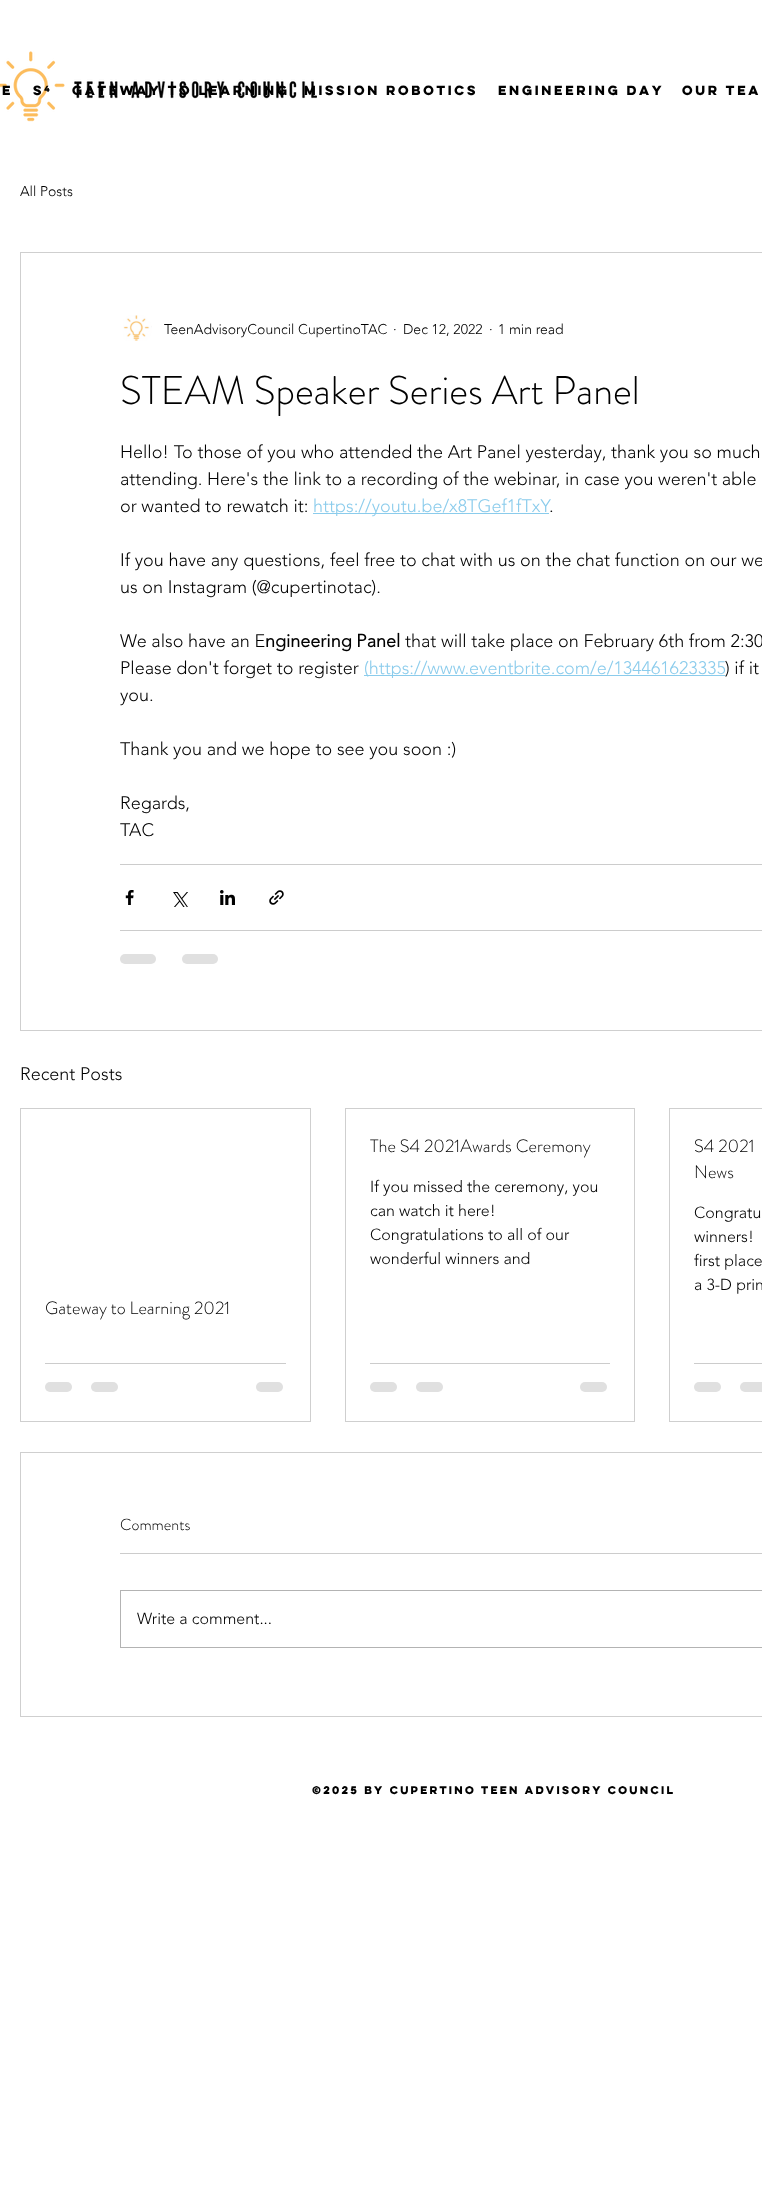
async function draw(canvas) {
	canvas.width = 762;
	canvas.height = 2210;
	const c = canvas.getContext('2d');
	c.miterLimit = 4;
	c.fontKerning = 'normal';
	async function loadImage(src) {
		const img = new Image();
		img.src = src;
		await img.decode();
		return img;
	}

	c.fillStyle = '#fff';
	c.fillRect(0, 0, 762, 2210);
	c.drawImage(await loadImage('img1.png'), 0, 51, 317, 71);
	c.font = 'bold 12px "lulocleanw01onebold"';
	c.fillStyle = '#000';
	for (const [text, x, y] of [
		['e', 2, 95],
		['S⁴', 33, 95],
		['Gateway to Learning', 72, 95],
		['Mission Robotics', 304, 95],
		['Engineering Day', 498, 95],
		['Our Tea', 682, 95],
	]) {
		c.fillText(text, x, y);
	}
	c.font = '300 14px "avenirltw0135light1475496"';
	c.fillText('All Posts', 20, 196);
	c.strokeStyle = '#cfcfcf';
	c.strokeRect(20.5, 252.5, 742, 778);
	c.drawImage(await loadImage('img2.png'), 123, 315, 29, 26);
	for (const [text, x, y] of [
		['TeenAdvisoryCouncil CupertinoTAC', 164, 334],
		['·', 393, 334],
		['Dec 12, 2022', 403, 334],
		['·', 489, 334],
		['1 min read', 498, 334],
	]) {
		c.fillText(text, x, y);
	}
	c.font = '300 40px "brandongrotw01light"';
	c.fillText('STEAM Speaker Series Art Panel', 120, 404);
	c.font = '300 18px "avenirltw0135light1475496"';
	for (const [text, x, y] of [
		['Hello! To those of you who attended the Art Panel yesterday, thank you so much', 120, 458],
		['attending. Here\'s the link to a recording of the webinar, in case you weren\'t able', 120, 485],
		['or wanted to rewatch it:', 120, 512],
	]) {
		c.fillText(text, x, y);
	}
	c.fillStyle = '#8bccec';
	c.fillRect(313, 513, 236, 1);
	c.fillText('https://youtu.be/x8TGef1fTxY', 313, 512);
	c.fillStyle = '#000';
	for (const [text, x, y] of [
		['.', 549, 512],
		['If you have any questions, feel free to chat with us on the chat function on our we', 120, 566],
		['us on Instagram (@cupertinotac).', 120, 593],
		['We also have an E', 120, 647],
	]) {
		c.fillText(text, x, y);
	}
	c.font = 'bold 18px "avenirltw0135light1475496"';
	c.fillText('ngineering Panel', 265, 647);
	c.font = '300 18px "avenirltw0135light1475496"';
	c.fillText('that will take place on February 6th from 2:30', 405, 647);
	c.fillText('Please don\'t forget to register', 120, 674);
	c.fillStyle = '#8bccec';
	c.fillRect(364, 675, 361, 1);
	c.fillText('(https://www.eventbrite.com/e/134461623335', 364, 674);
	c.fillStyle = '#000';
	for (const [text, x, y] of [
		[') if it', 725, 674],
		['you.', 120, 701],
		['Thank you and we hope to see you soon :)', 120, 755],
		['Regards,', 120, 809],
		['TAC', 120, 836],
	]) {
		c.fillText(text, x, y);
	}
	c.fillStyle = '#ccc';
	c.fillRect(120, 864, 642, 1);
	c.drawImage(await loadImage('img3.png'), 125, 890, 9, 15);
	c.drawImage(await loadImage('img4.png'), 173, 892, 15, 15);
	c.drawImage(await loadImage('img5.png'), 220, 890, 15, 15);
	c.drawImage(await loadImage('img6.png'), 269, 890, 15, 15);
	c.fillRect(120, 930, 642, 1);
	c.fillStyle = '#e0e0e0';
	c.beginPath();
	c.roundRect(120, 954, 36, 10, 5);
	c.fill();
	c.beginPath();
	c.roundRect(182, 954, 36, 10, 5);
	c.fill();
	c.fillStyle = '#000';
	c.fillText('Recent Posts', 20, 1080);
	c.strokeRect(345.5, 1108.5, 289, 313);
	c.font = '300 18px "brandongrotw01light"';
	c.fillText('The S4 2021Awards Ceremony', 370, 1152);
	c.font = '300 16px "avenirltw0135light1475496"';
	for (const [text, x, y] of [
		['If you missed the ceremony, you', 370, 1192],
		['can watch it here!', 370, 1216],
		['Congratulations to all of our', 370, 1240],
		['wonderful winners and', 370, 1264],
	]) {
		c.fillText(text, x, y);
	}
	c.fillStyle = '#ccc';
	c.fillRect(370, 1363, 240, 1);
	c.fillStyle = '#e0e0e0';
	c.beginPath();
	c.roundRect(370, 1382, 27, 10, 5);
	c.fill();
	c.beginPath();
	c.roundRect(416, 1382, 27, 10, 5);
	c.fill();
	c.beginPath();
	c.roundRect(580, 1382, 27, 10, 5);
	c.fill();
	c.strokeRect(669.5, 1108.5, 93, 313);
	c.font = '300 18px "brandongrotw01light"';
	c.fillStyle = '#000';
	c.fillText('S4 2021', 694, 1152);
	c.fillText('News', 694, 1178);
	c.font = '300 16px "avenirltw0135light1475496"';
	for (const [text, x, y] of [
		['Congratu', 694, 1218],
		['winners!', 694, 1242],
		['first place', 694, 1266],
		['a 3-D prin', 694, 1290],
	]) {
		c.fillText(text, x, y);
	}
	c.fillStyle = '#ccc';
	c.fillRect(694, 1363, 68, 1);
	c.fillStyle = '#e0e0e0';
	c.beginPath();
	c.roundRect(694, 1382, 27, 10, 5);
	c.fill();
	c.beginPath();
	c.roundRect(740, 1382, 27, 10, 5);
	c.fill();
	c.strokeRect(20.5, 1108.5, 290, 313);
	c.font = '300 18px "brandongrotw01light"';
	c.fillStyle = '#000';
	c.fillText('Gateway to Learning 2021', 45, 1314);
	c.fillStyle = '#ccc';
	c.fillRect(45, 1363, 241, 1);
	c.fillStyle = '#e0e0e0';
	c.beginPath();
	c.roundRect(45, 1382, 27, 10, 5);
	c.fill();
	c.beginPath();
	c.roundRect(91, 1382, 27, 10, 5);
	c.fill();
	c.beginPath();
	c.roundRect(256, 1382, 27, 10, 5);
	c.fill();
	c.strokeRect(20.5, 1452.5, 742, 264);
	c.font = '300 16px "brandongrotw01light"';
	c.fillStyle = '#000';
	c.fillText('Comments', 120, 1530);
	c.fillStyle = '#ccc';
	c.fillRect(120, 1553, 642, 1);
	c.strokeStyle = '#b3b3b3';
	c.strokeRect(120.5, 1590.5, 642, 57);
	c.font = '300 16px "avenirltw0135light1475496"';
	c.fillStyle = '#000';
	c.fillText('Write a comment...', 137, 1624);
	c.font = 'bold 10px "lulocleanw01onebold"';
	c.fillText('©2025 by Cupertino Teen Advisory Council', 312, 1794);
}

draw(document.querySelector('canvas'));
